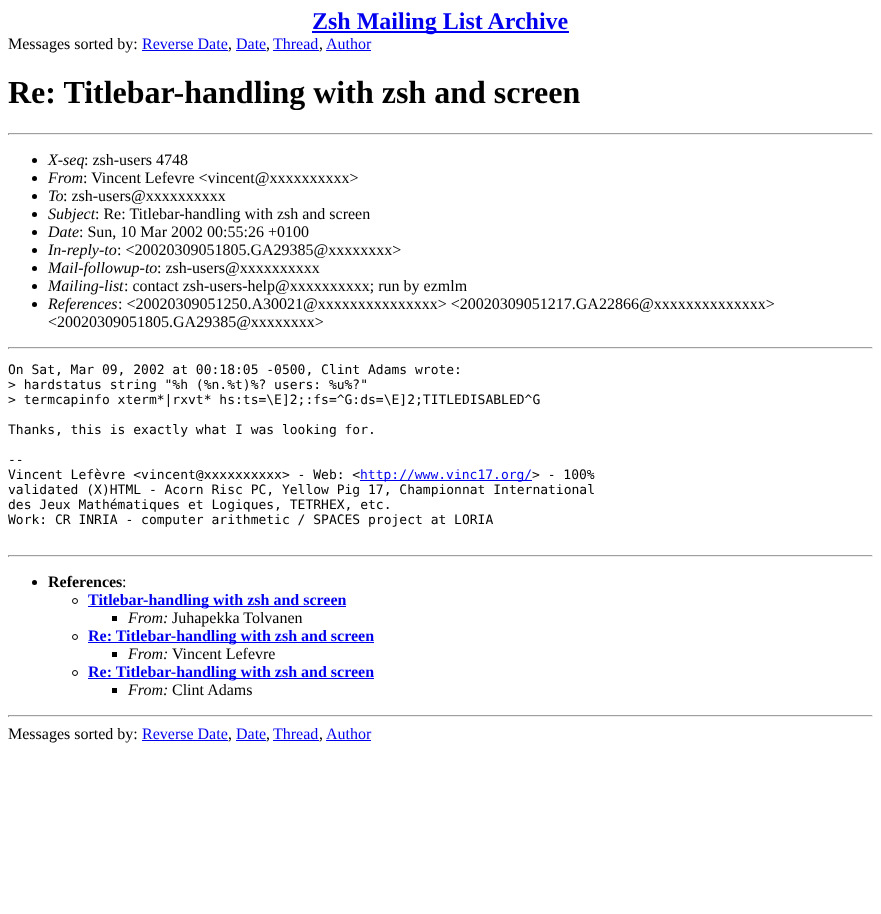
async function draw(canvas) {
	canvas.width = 881;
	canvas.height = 914;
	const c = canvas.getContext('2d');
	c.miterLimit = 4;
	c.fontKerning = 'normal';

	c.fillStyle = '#fff';
	c.fillRect(0, 0, 881, 914);
	c.fillStyle = '#00e';
	c.fillRect(312, 31, 257, 2);
	c.font = 'bold 24px Liberation Serif';
	c.fillText('Zsh Mailing List Archive', 312, 29);
	c.font = '16px Liberation Serif';
	c.fillStyle = '#000';
	c.fillText('Messages sorted by:', 8, 49);
	c.fillStyle = '#00e';
	c.fillText('Reverse Date', 142, 49);
	c.fillRect(142, 50, 86, 1);
	c.fillStyle = '#000';
	c.fillText(',', 228, 49);
	c.fillStyle = '#00e';
	c.fillText('Date', 236, 49);
	c.fillRect(236, 50, 30, 1);
	c.fillStyle = '#000';
	c.fillText(',', 266, 49);
	c.fillStyle = '#00e';
	c.fillText('Thread', 273, 49);
	c.fillRect(273, 50, 46, 1);
	c.fillStyle = '#000';
	c.fillText(',', 319, 49);
	c.fillStyle = '#00e';
	c.fillText('Author', 326, 49);
	c.fillRect(326, 50, 45, 1);
	c.font = 'bold 32px Liberation Serif';
	c.fillStyle = '#000';
	c.fillText('Re: Titlebar-handling with zsh and screen', 8, 103);
	for (const [x, y, w, h, color] of [
		[8, 133, 865, 1, '#9f9f9f'],
		[872, 133, 1, 2, '#eee'],
		[8, 134, 865, 1, '#eee'],
		[8, 133, 1, 2, '#9f9f9f'],
	]) {
		c.fillStyle = color;
		c.fillRect(x, y, w, h);
	}
	c.fillStyle = '#000';
	c.beginPath();
	c.arc(34.5, 160.5, 2.5, 0, 2 * Math.PI);
	c.fill();
	c.font = 'italic 16px Liberation Serif';
	c.fillText('X-seq', 48, 165);
	c.font = '16px Liberation Serif';
	c.fillText(': zsh-users 4748', 84, 165);
	c.beginPath();
	c.arc(34.5, 178.5, 2.5, 0, 2 * Math.PI);
	c.fill();
	c.font = 'italic 16px Liberation Serif';
	c.fillText('From', 48, 183);
	c.font = '16px Liberation Serif';
	c.fillText(': Vincent Lefevre <vincent@xxxxxxxxxx>', 83, 183);
	c.beginPath();
	c.arc(34.5, 196.5, 2.5, 0, 2 * Math.PI);
	c.fill();
	c.font = 'italic 16px Liberation Serif';
	c.fillText('To', 48, 201);
	c.font = '16px Liberation Serif';
	c.fillText(': zsh-users@xxxxxxxxxx', 63, 201);
	c.beginPath();
	c.arc(34.5, 214.5, 2.5, 0, 2 * Math.PI);
	c.fill();
	c.font = 'italic 16px Liberation Serif';
	c.fillText('Subject', 48, 219);
	c.font = '16px Liberation Serif';
	c.fillText(': Re: Titlebar-handling with zsh and screen', 95, 219);
	c.beginPath();
	c.arc(34.5, 232.5, 2.5, 0, 2 * Math.PI);
	c.fill();
	c.font = 'italic 16px Liberation Serif';
	c.fillText('Date', 48, 237);
	c.font = '16px Liberation Serif';
	c.fillText(': Sun, 10 Mar 2002 00:55:26 +0100', 79, 237);
	c.beginPath();
	c.arc(34.5, 250.5, 2.5, 0, 2 * Math.PI);
	c.fill();
	c.font = 'italic 16px Liberation Serif';
	c.fillText('In-reply-to', 48, 255);
	c.font = '16px Liberation Serif';
	c.fillText(': <20020309051805.GA29385@xxxxxxxx>', 117, 255);
	c.beginPath();
	c.arc(34.5, 268.5, 2.5, 0, 2 * Math.PI);
	c.fill();
	c.font = 'italic 16px Liberation Serif';
	c.fillText('Mail-followup-to', 48, 273);
	c.font = '16px Liberation Serif';
	c.fillText(': zsh-users@xxxxxxxxxx', 157, 273);
	c.beginPath();
	c.arc(34.5, 286.5, 2.5, 0, 2 * Math.PI);
	c.fill();
	c.font = 'italic 16px Liberation Serif';
	c.fillText('Mailing-list', 48, 291);
	c.font = '16px Liberation Serif';
	c.fillText(': contact zsh-users-help@xxxxxxxxxx; run by ezmlm', 124, 291);
	c.beginPath();
	c.arc(34.5, 304.5, 2.5, 0, 2 * Math.PI);
	c.fill();
	c.font = 'italic 16px Liberation Serif';
	c.fillText('References', 48, 309);
	c.font = '16px Liberation Serif';
	c.fillText(': <20020309051250.A30021@xxxxxxxxxxxxxxx> <20020309051217.GA22866@xxxxxxxxxxxxxx>', 118, 309);
	c.fillText('<20020309051805.GA29385@xxxxxxxx>', 48, 327);
	for (const [x, y, w, h, color] of [
		[8, 347, 865, 1, '#9f9f9f'],
		[872, 347, 1, 2, '#eee'],
		[8, 348, 865, 1, '#eee'],
		[8, 347, 1, 2, '#9f9f9f'],
	]) {
		c.fillStyle = color;
		c.fillRect(x, y, w, h);
	}
	c.font = '13px DejaVu Sans Mono';
	c.fillStyle = '#000';
	for (const [text, x, y] of [
		['On Sat, Mar 09, 2002 at 00:18:05 -0500, Clint Adams wrote:', 8, 374],
		['> hardstatus string "%h (%n.%t)%? users: %u%?"', 8, 389],
		['> termcapinfo xterm*|rxvt* hs:ts=\\E]2;:fs=^G:ds=\\E]2;TITLEDISABLED^G', 8, 404],
		['Thanks, this is exactly what I was looking for.', 8, 434],
		['--', 8, 464],
		['Vincent Lefèvre <vincent@xxxxxxxxxx> - Web: <', 8, 479],
	]) {
		c.fillText(text, x, y);
	}
	c.fillStyle = '#00e';
	c.fillRect(360, 480, 172, 1);
	c.fillText('http://www.vinc17.org/', 360, 479);
	c.fillStyle = '#000';
	for (const [text, x, y] of [
		['> - 100%', 532, 479],
		['validated (X)HTML - Acorn Risc PC, Yellow Pig 17, Championnat International', 8, 494],
		['des Jeux Mathématiques et Logiques, TETRHEX, etc.', 8, 509],
		['Work: CR INRIA - computer arithmetic / SPACES project at LORIA', 8, 524],
	]) {
		c.fillText(text, x, y);
	}
	for (const [x, y, w, h, color] of [
		[8, 555, 865, 1, '#9f9f9f'],
		[872, 555, 1, 2, '#eee'],
		[8, 556, 865, 1, '#eee'],
		[8, 555, 1, 2, '#9f9f9f'],
	]) {
		c.fillStyle = color;
		c.fillRect(x, y, w, h);
	}
	c.fillStyle = '#000';
	c.beginPath();
	c.arc(34.5, 582.5, 2.5, 0, 2 * Math.PI);
	c.fill();
	c.font = 'bold 16px Liberation Serif';
	c.fillText('References', 48, 587);
	c.font = '16px Liberation Serif';
	c.fillText(':', 122, 587);
	c.beginPath();
	c.arc(75, 601, 2.5, 0, 2 * Math.PI);
	c.strokeStyle = '#000';
	c.stroke();
	c.fillStyle = '#00e';
	c.fillRect(88, 606, 258, 1);
	c.font = 'bold 16px Liberation Serif';
	c.fillText('Titlebar-handling with zsh and screen', 88, 605);
	c.fillStyle = '#000';
	c.fillRect(112, 616, 5, 5);
	c.font = 'italic 16px Liberation Serif';
	c.fillText('From:', 128, 623);
	c.font = '16px Liberation Serif';
	c.fillText('Juhapekka Tolvanen', 172, 623);
	c.beginPath();
	c.arc(75, 637, 2.5, 0, 2 * Math.PI);
	c.stroke();
	c.fillStyle = '#00e';
	c.fillRect(88, 642, 286, 1);
	c.font = 'bold 16px Liberation Serif';
	c.fillText('Re: Titlebar-handling with zsh and screen', 88, 641);
	c.fillStyle = '#000';
	c.fillRect(112, 652, 5, 5);
	c.font = 'italic 16px Liberation Serif';
	c.fillText('From:', 128, 659);
	c.font = '16px Liberation Serif';
	c.fillText('Vincent Lefevre', 172, 659);
	c.beginPath();
	c.arc(75, 673, 2.5, 0, 2 * Math.PI);
	c.stroke();
	c.fillStyle = '#00e';
	c.fillRect(88, 678, 286, 1);
	c.font = 'bold 16px Liberation Serif';
	c.fillText('Re: Titlebar-handling with zsh and screen', 88, 677);
	c.fillStyle = '#000';
	c.fillRect(112, 688, 5, 5);
	c.font = 'italic 16px Liberation Serif';
	c.fillText('From:', 128, 695);
	c.font = '16px Liberation Serif';
	c.fillText('Clint Adams', 172, 695);
	for (const [x, y, w, h, color] of [
		[8, 715, 865, 1, '#9f9f9f'],
		[872, 715, 1, 2, '#eee'],
		[8, 716, 865, 1, '#eee'],
		[8, 715, 1, 2, '#9f9f9f'],
	]) {
		c.fillStyle = color;
		c.fillRect(x, y, w, h);
	}
	c.fillStyle = '#000';
	c.fillText('Messages sorted by:', 8, 739);
	c.fillStyle = '#00e';
	c.fillText('Reverse Date', 142, 739);
	c.fillRect(142, 740, 86, 1);
	c.fillStyle = '#000';
	c.fillText(',', 228, 739);
	c.fillStyle = '#00e';
	c.fillText('Date', 236, 739);
	c.fillRect(236, 740, 30, 1);
	c.fillStyle = '#000';
	c.fillText(',', 266, 739);
	c.fillStyle = '#00e';
	c.fillText('Thread', 273, 739);
	c.fillRect(273, 740, 46, 1);
	c.fillStyle = '#000';
	c.fillText(',', 319, 739);
	c.fillStyle = '#00e';
	c.fillText('Author', 326, 739);
	c.fillRect(326, 740, 45, 1);
}

draw(document.querySelector('canvas'));
